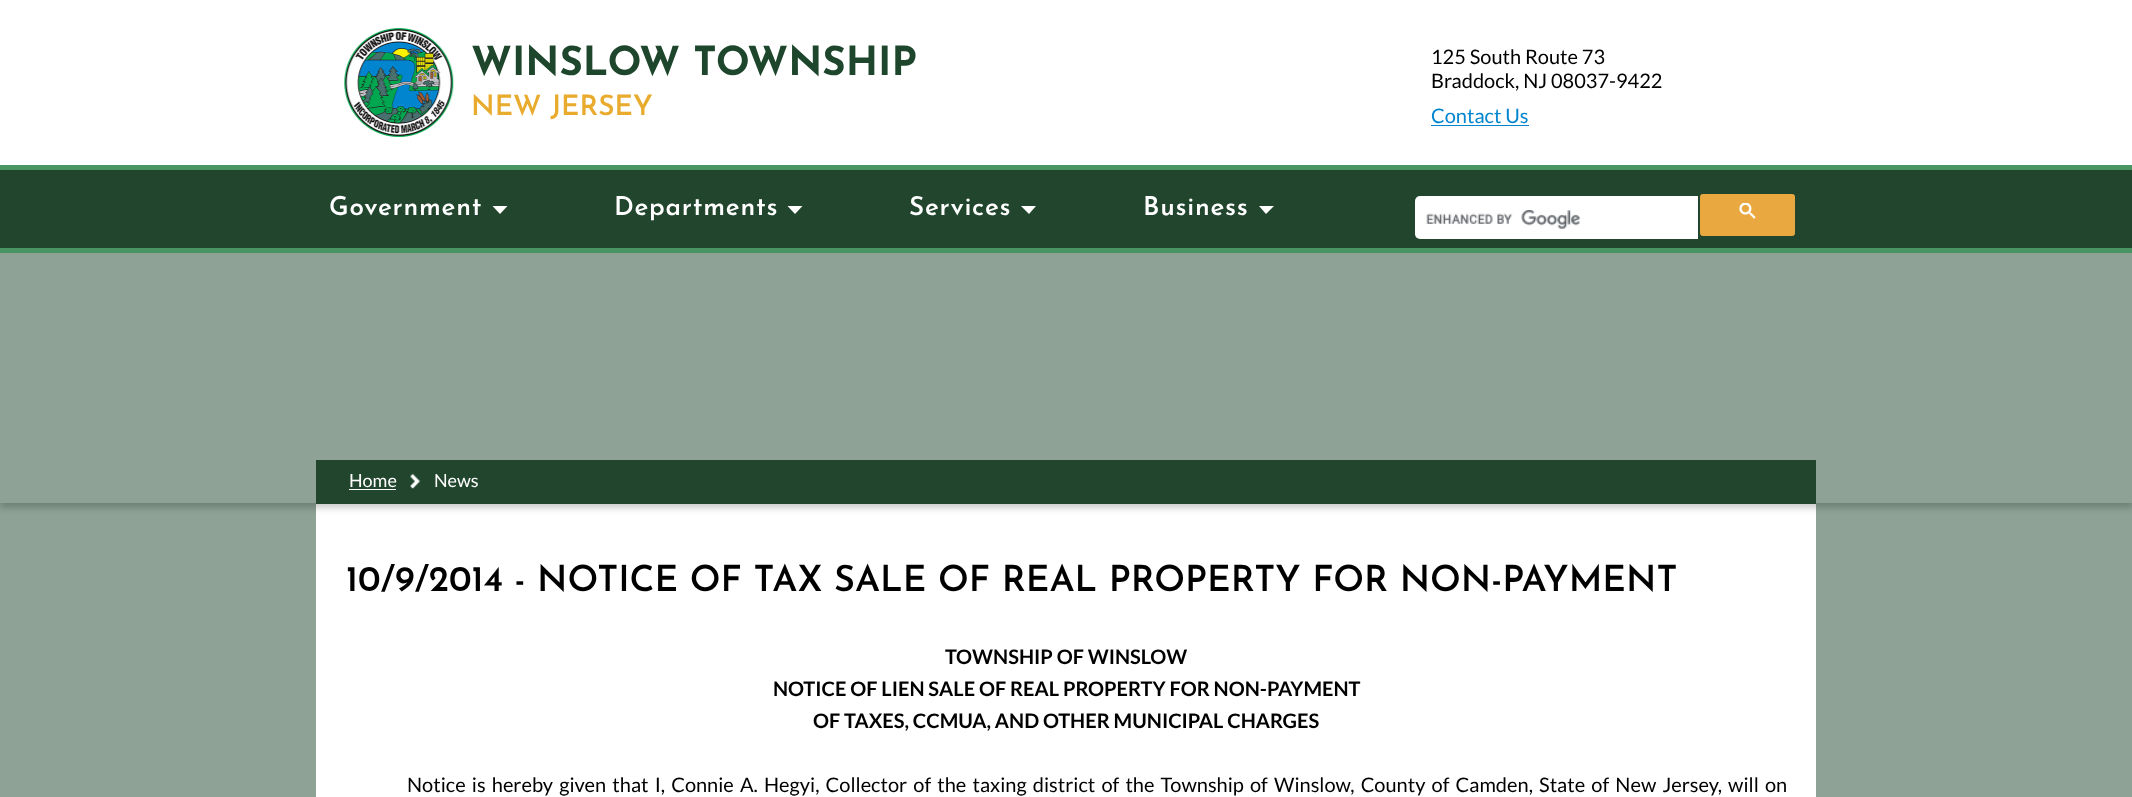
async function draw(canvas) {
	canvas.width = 2132;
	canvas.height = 797;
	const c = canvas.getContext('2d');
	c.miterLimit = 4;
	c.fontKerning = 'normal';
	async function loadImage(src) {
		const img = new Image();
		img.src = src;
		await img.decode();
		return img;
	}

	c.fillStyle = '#fff';
	c.fillRect(0, 0, 2132, 797);
	c.drawImage(await loadImage('img1.png'), 344, 28, 110, 109);
	c.font = 'bold 40px Josefin Sans';
	c.fillStyle = '#1e462c';
	c.fillText('WINSLOW TOWNSHIP', 471, 75);
	c.font = '600 28px Josefin Sans';
	c.fillStyle = '#e9ab2e';
	c.fillText('NEW JERSEY', 471, 115);
	c.font = '20px Lato';
	c.fillStyle = '#000';
	c.fillText('125 South Route 73', 1431, 64);
	c.fillText('Braddock, NJ 08037-9422', 1431, 88);
	c.fillStyle = '#0185cf';
	c.fillText('Contact Us', 1431, 123);
	for (const [x, y, w, h, color] of [
		[1431, 125, 98, 1, '#0185cf'],
		[0, 170, 2132, 78, '#21452d'],
		[0, 165, 2132, 5, '#499463'],
		[0, 248, 2132, 5, '#499463'],
	]) {
		c.fillStyle = color;
		c.fillRect(x, y, w, h);
	}
	c.letterSpacing = '0.75px';
	c.font = '600 26px Josefin Sans';
	c.fillStyle = '#fff';
	c.fillText('Government', 329, 215);
	c.beginPath();
	c.moveTo(492.5, 206);
	c.lineTo(507.5, 206);
	c.lineTo(500, 214);
	c.closePath();
	c.fill();
	c.fillText('Departments', 614, 215);
	c.beginPath();
	c.moveTo(787.5, 206);
	c.lineTo(802.5, 206);
	c.lineTo(795, 214);
	c.closePath();
	c.fill();
	c.fillText('Services', 909, 215);
	c.beginPath();
	c.moveTo(1021, 206);
	c.lineTo(1036, 206);
	c.lineTo(1029, 214);
	c.closePath();
	c.fill();
	c.fillText('Business', 1143, 215);
	c.beginPath();
	c.moveTo(1259, 206);
	c.lineTo(1274, 206);
	c.lineTo(1266, 214);
	c.closePath();
	c.fill();
	c.beginPath();
	c.roundRect(1415, 196, 283, 43, [5, 0, 0, 5]);
	c.fill();
	c.drawImage(await loadImage('img2.png'), 1426, 210, 154, 19);
	c.fillStyle = '#eaa840';
	c.beginPath();
	c.roundRect(1700.5, 194.5, 94, 41, 2);
	c.fill();
	c.strokeStyle = '#eaa840';
	c.stroke();
	c.drawImage(await loadImage('img3.png'), 1739, 203, 17, 16);
	c.fillStyle = '#8ea295';
	c.fillRect(0, 253, 2132, 544);
	c.fillStyle = '#fff';
	c.fillRect(316, 504, 1500, 293);
	c.save();
	c.beginPath();
	c.moveTo(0, 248);
	c.lineTo(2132, 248);
	c.lineTo(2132, 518);
	c.lineTo(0, 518);
	c.closePath();
	c.moveTo(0, 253);
	c.lineTo(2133, 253);
	c.lineTo(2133, 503);
	c.lineTo(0, 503);
	c.closePath();
	c.clip('evenodd');
	c.fillStyle = '#00000033';
	c.filter = 'blur(3px)';
	c.beginPath();
	c.rect(0, 258, 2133, 250);
	c.fill();
	c.filter = 'none';
	c.restore();
	c.fillStyle = '#21452d';
	c.fillRect(316, 460, 1500, 44);
	c.letterSpacing = '0px';
	c.font = '18px Lato';
	c.fillStyle = '#fff';
	c.fillText('Home', 349, 487);
	c.fillRect(349, 489, 47, 1);
	c.drawImage(await loadImage('img4.png'), 410, 473, 11, 16);
	c.fillText('News', 434, 487);
	c.font = '600 36px Josefin Sans';
	c.fillStyle = '#000';
	c.fillText('10/9/2014 - NOTICE OF TAX SALE OF REAL PROPERTY FOR NON-PAYMENT', 346, 591);
	c.font = 'bold 20px Lato';
	for (const [text, x, y] of [
		['TOWNSHIP OF WINSLOW', 945, 664],
		['NOTICE OF LIEN SALE OF REAL PROPERTY FOR NON-PAYMENT', 773, 696],
		['OF TAXES, CCMUA, AND OTHER MUNICIPAL CHARGES', 813, 728],
	]) {
		c.fillText(text, x, y);
	}
	c.wordSpacing = '2.3px';
	c.font = '20px Lato';
	c.fillText('Notice is hereby given that I, Connie A. Hegyi, Collector of the taxing district of the Township of Winslow, County of Camden, State of New Jersey, will on', 407, 792);
}

draw(document.querySelector('canvas'));
